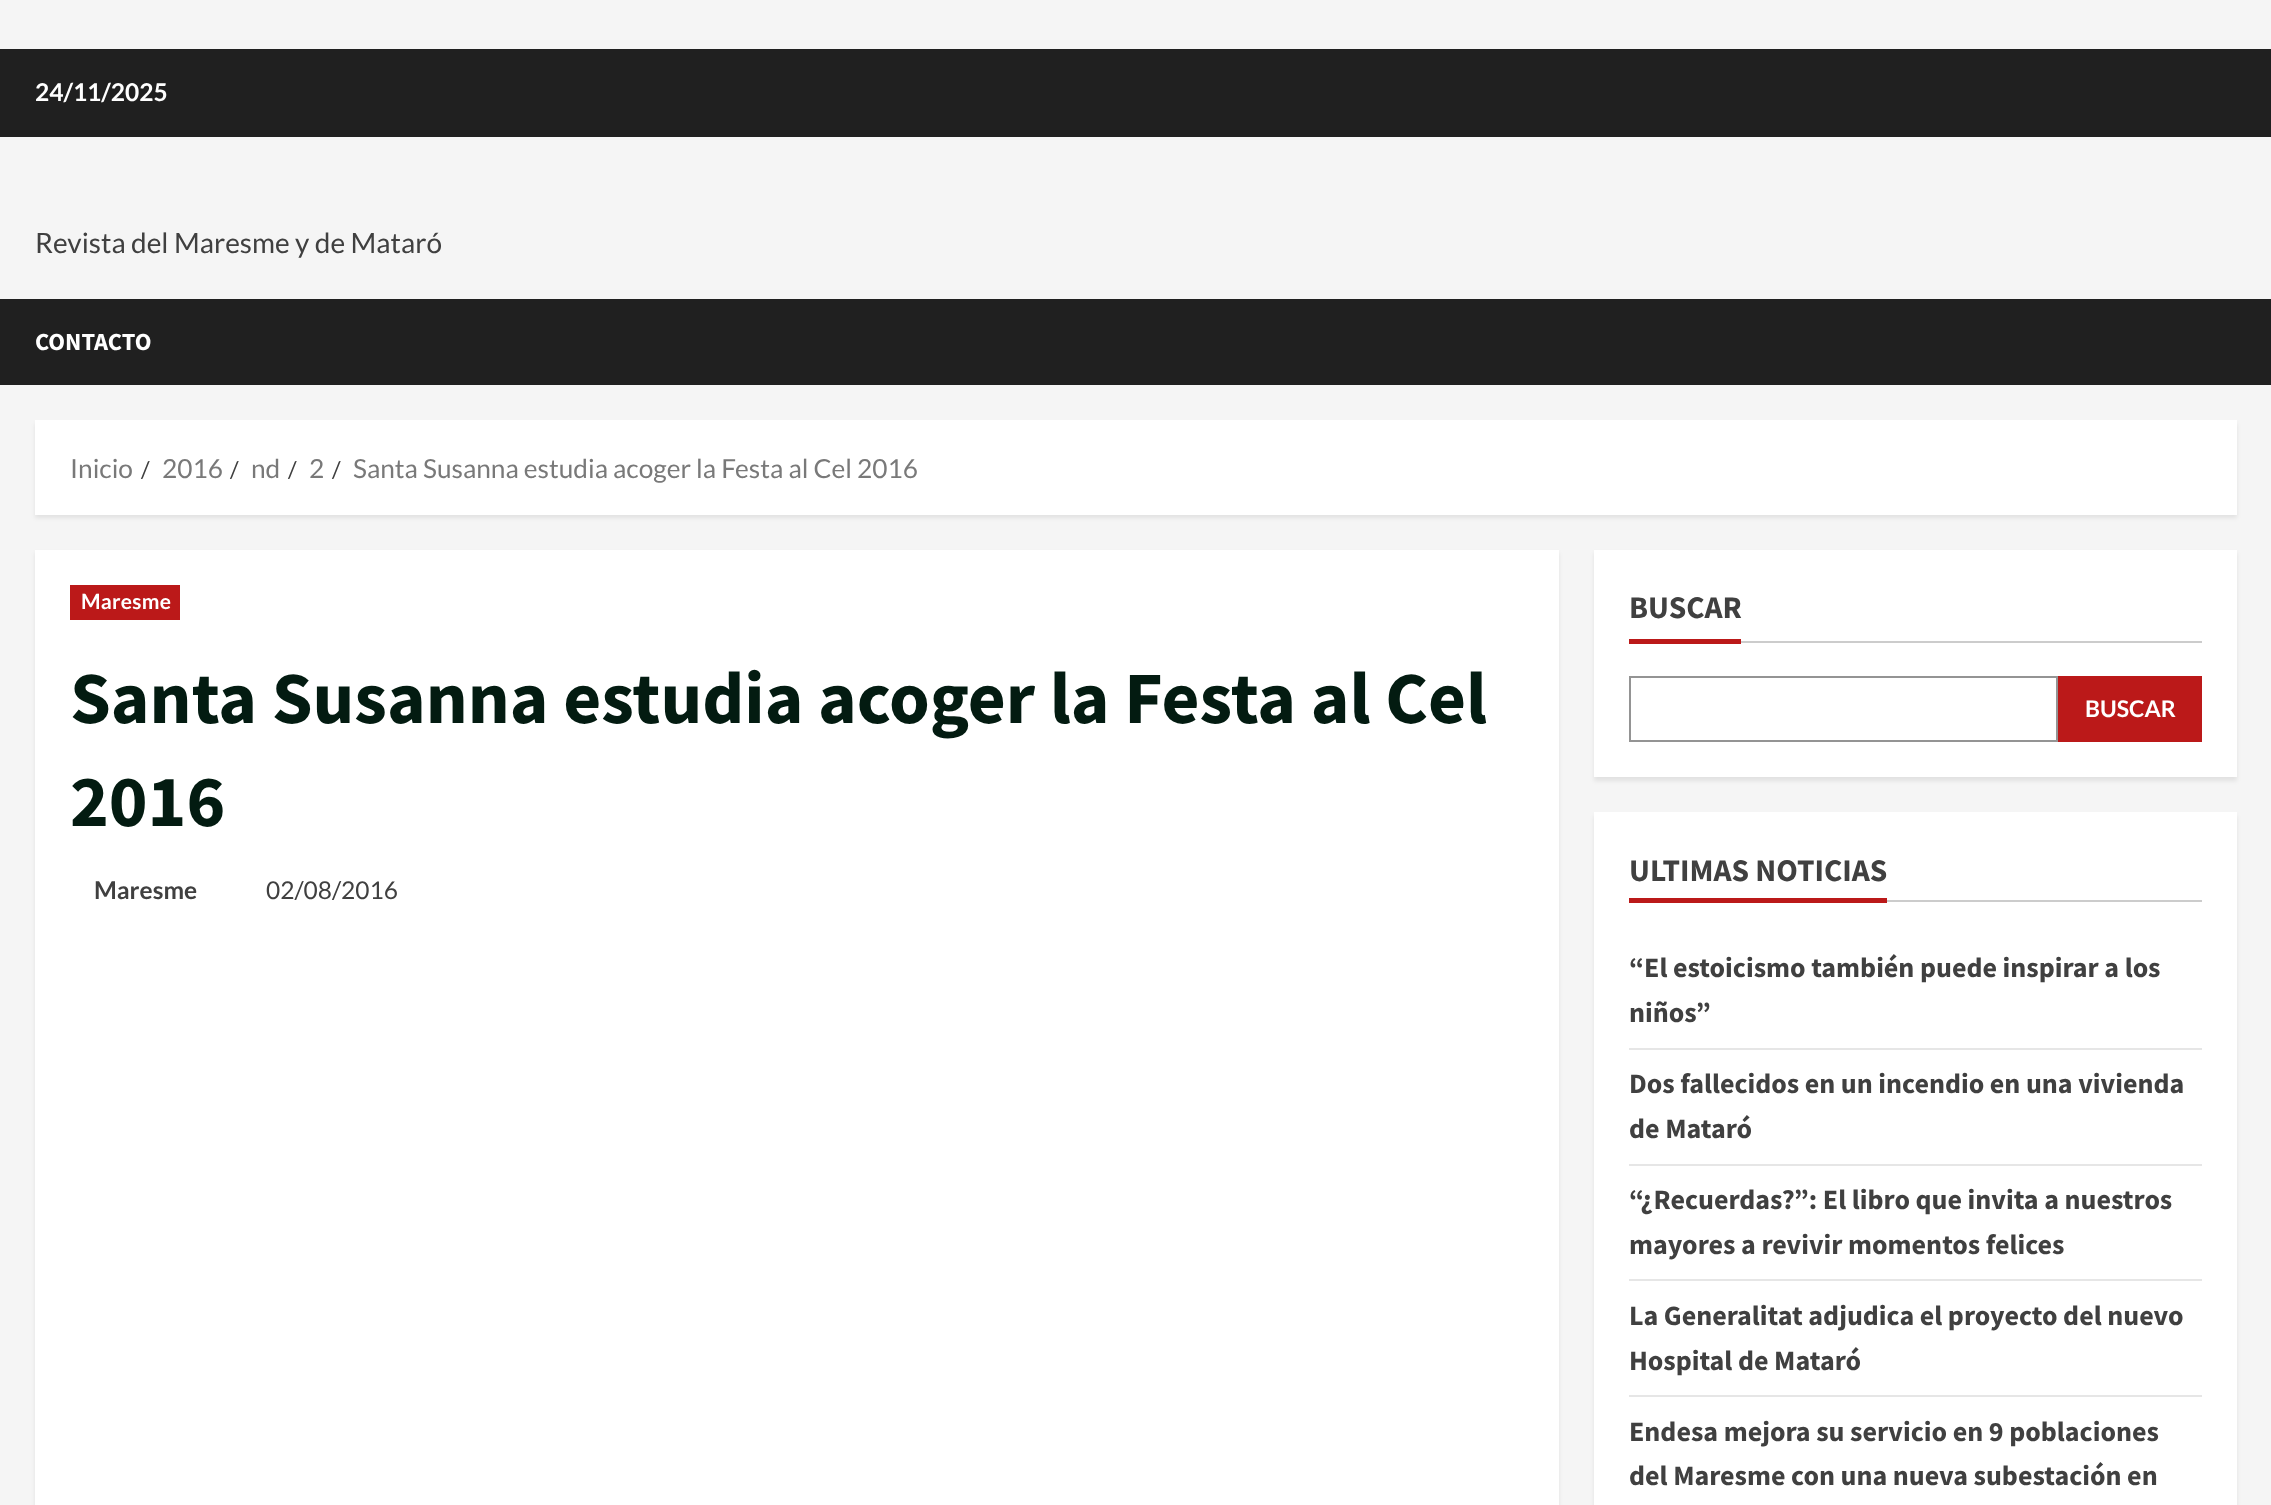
async function draw(canvas) {
	canvas.width = 2271;
	canvas.height = 1505;
	const c = canvas.getContext('2d');
	c.miterLimit = 4;
	c.fontKerning = 'normal';

	c.fillStyle = '#f5f5f5';
	c.fillRect(0, 0, 2271, 1505);
	c.fillStyle = '#202020';
	c.fillRect(0, 49, 2271, 88);
	c.font = 'bold 24.5px Lato';
	c.fillStyle = '#fff';
	c.fillText('24/11/2025', 35, 101);
	c.font = '28px Lato';
	c.fillStyle = '#404040';
	c.fillText('Revista del Maresme y de Mataró', 35, 253);
	c.fillStyle = '#202020';
	c.fillRect(0, 299, 2271, 86);
	c.font = 'bold 24.5px Source Sans Pro';
	c.fillStyle = '#fff';
	c.fillText('CONTACTO', 35, 350);
	c.fillStyle = '#00000014';
	c.filter = 'blur(2px)';
	c.beginPath();
	c.rect(35, 424, 2202, 94);
	c.fill();
	c.filter = 'none';
	c.fillStyle = '#fff';
	c.fillRect(35, 420, 2202, 95);
	c.font = '26.25px Lato';
	c.fillStyle = '#797979';
	c.fillText('Inicio', 70, 478);
	c.font = '23px Lato';
	c.fillStyle = '#404040';
	c.fillText('/', 141, 478);
	c.font = '26.25px Lato';
	c.fillStyle = '#797979';
	c.fillText('2016', 162, 478);
	c.font = '23px Lato';
	c.fillStyle = '#404040';
	c.fillText('/', 230, 478);
	c.font = '26.25px Lato';
	c.fillStyle = '#797979';
	c.fillText('nd', 251, 478);
	c.font = '23px Lato';
	c.fillStyle = '#404040';
	c.fillText('/', 288, 478);
	c.font = '26.25px Lato';
	c.fillStyle = '#797979';
	c.fillText('2', 309, 478);
	c.font = '23px Lato';
	c.fillStyle = '#404040';
	c.fillText('/', 332, 478);
	c.font = '26.25px Lato';
	c.fillStyle = '#797979';
	c.fillText('Santa Susanna estudia acoger la Festa al Cel 2016', 353, 478);
	c.fillStyle = '#00000014';
	c.filter = 'blur(2px)';
	c.beginPath();
	c.rect(35, 553, 1524, 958);
	c.fill();
	c.filter = 'none';
	c.fillStyle = '#fff';
	c.fillRect(35, 550, 1524, 955);
	c.fillStyle = '#bb1919';
	c.fillRect(70, 585, 110, 35);
	c.letterSpacing = '0.25px';
	c.font = 'bold 21px Lato';
	c.fillStyle = '#fff';
	c.fillText('Maresme', 81, 609);
	c.letterSpacing = '0px';
	c.font = 'bold 73.5px Source Sans Pro';
	c.fillStyle = '#031b11';
	c.fillText('Santa Susanna estudia acoger la Festa al Cel', 70, 723);
	c.fillText('2016', 70, 826);
	c.font = 'bold 24.5px Lato';
	c.fillStyle = '#404040';
	c.fillText('Maresme', 94, 899);
	c.font = '24.5px Lato';
	c.fillText('02/08/2016', 266, 899);
	c.fillStyle = '#00000014';
	c.filter = 'blur(2px)';
	c.beginPath();
	c.rect(1594, 553, 643, 228);
	c.fill();
	c.filter = 'none';
	c.fillStyle = '#fff';
	c.fillRect(1594, 550, 643, 227);
	c.font = 'bold 31.5px Source Sans Pro';
	c.fillStyle = '#404040';
	c.fillText('BUSCAR', 1629, 618);
	c.fillStyle = '#bb1919';
	c.fillRect(1629, 639, 112, 5);
	c.fillStyle = '#ccc';
	c.fillRect(1741, 641, 461, 2);
	c.strokeStyle = '#949494';
	c.lineWidth = 2;
	c.strokeRect(1630, 677, 427, 64);
	c.fillStyle = '#bb1919';
	c.fillRect(2058, 676, 144, 66);
	c.font = 'bold 23px Lato';
	c.fillStyle = '#fff';
	c.fillText('BUSCAR', 2085, 717);
	c.fillStyle = '#00000014';
	c.filter = 'blur(2px)';
	c.beginPath();
	c.rect(1594, 816, 643, 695);
	c.fill();
	c.filter = 'none';
	c.fillStyle = '#fff';
	c.fillRect(1594, 812, 643, 693);
	c.font = 'bold 31.5px Source Sans Pro';
	c.fillStyle = '#404040';
	c.fillText('ULTIMAS NOTICIAS', 1629, 881);
	for (const [x, y, w, h, color] of [
		[1629, 898, 258, 5, '#bb1919'],
		[1887, 900, 315, 2, '#ccc'],
		[1629, 1048, 573, 2, '#e6e6e6'],
	]) {
		c.fillStyle = color;
		c.fillRect(x, y, w, h);
	}
	c.font = 'bold 28px Source Sans Pro';
	c.fillStyle = '#404040';
	c.fillText('“El estoicismo también puede inspirar a los', 1629, 977);
	c.fillText('niños”', 1629, 1022);
	c.fillStyle = '#e6e6e6';
	c.fillRect(1629, 1164, 573, 2);
	c.fillStyle = '#404040';
	c.fillText('Dos fallecidos en un incendio en una vivienda', 1629, 1093);
	c.fillText('de Mataró', 1629, 1138);
	c.fillStyle = '#e6e6e6';
	c.fillRect(1629, 1279, 573, 2);
	c.fillStyle = '#404040';
	c.fillText('“¿Recuerdas?”: El libro que invita a nuestros', 1629, 1209);
	c.fillText('mayores a revivir momentos felices', 1629, 1254);
	c.fillStyle = '#e6e6e6';
	c.fillRect(1629, 1395, 573, 2);
	c.fillStyle = '#404040';
	for (const [text, x, y] of [
		['La Generalitat adjudica el proyecto del nuevo', 1629, 1325],
		['Hospital de Mataró', 1629, 1370],
		['Endesa mejora su servicio en 9 poblaciones', 1629, 1441],
		['del Maresme con una nueva subestación en', 1629, 1485],
	]) {
		c.fillText(text, x, y);
	}
}

draw(document.querySelector('canvas'));
